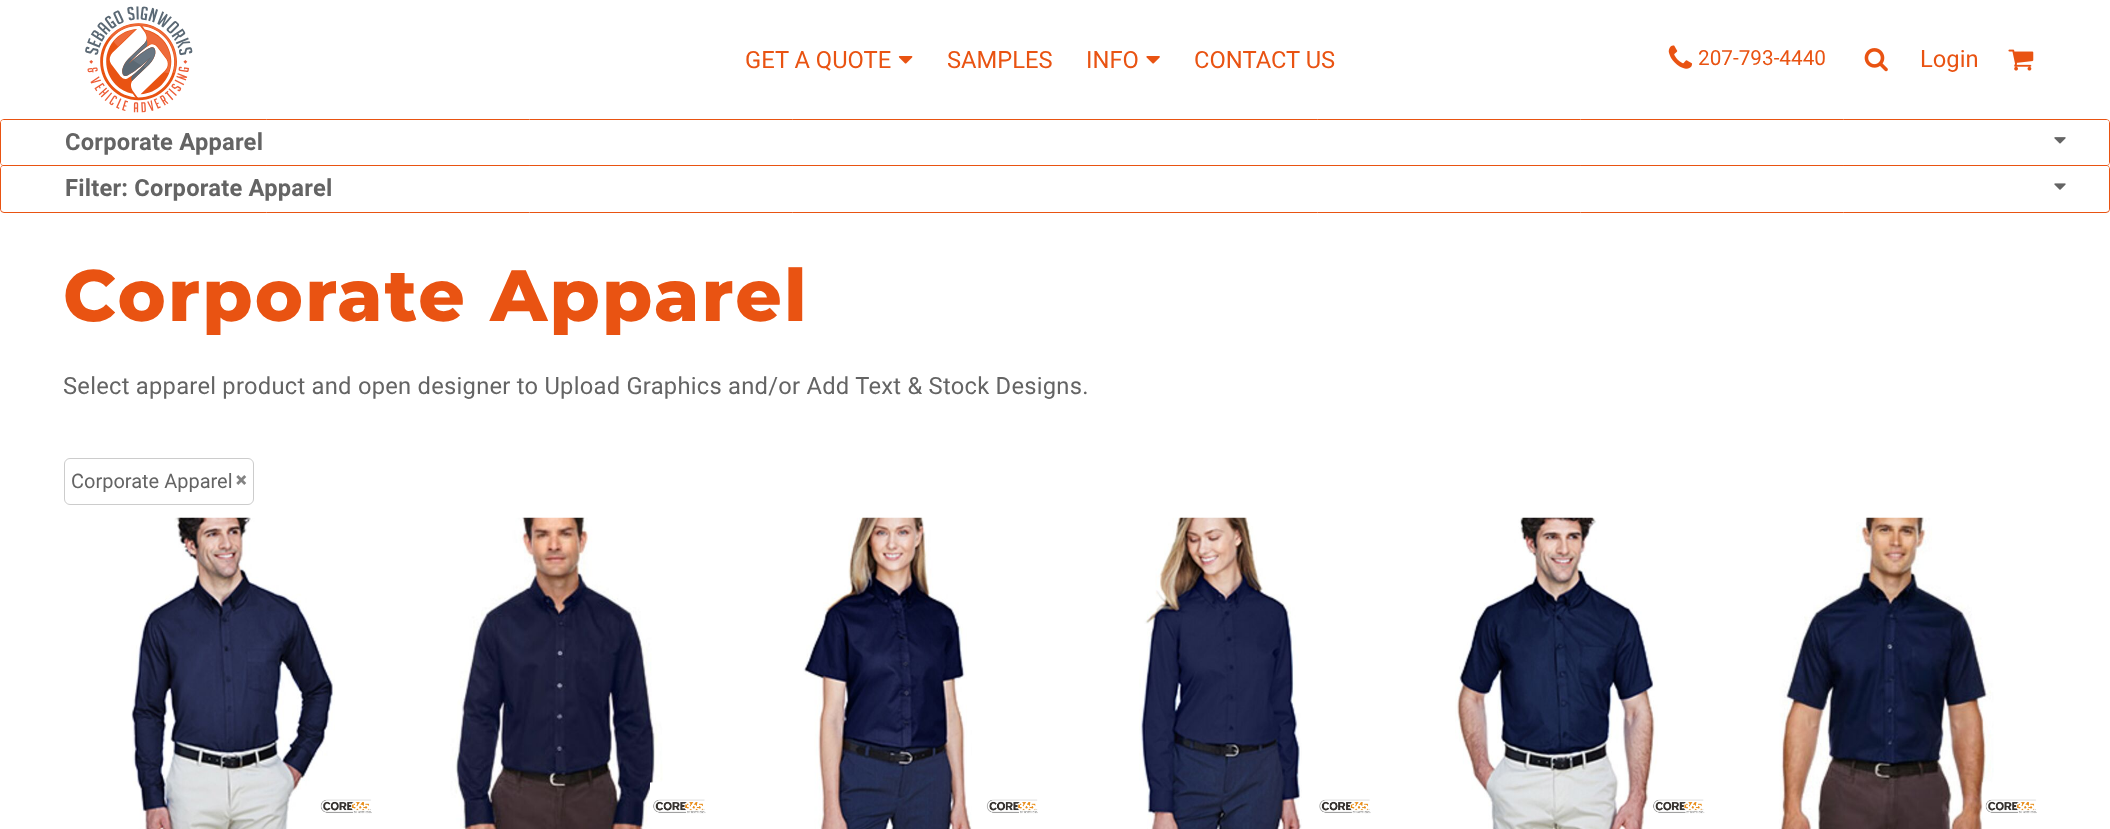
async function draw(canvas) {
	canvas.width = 2110;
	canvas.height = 829;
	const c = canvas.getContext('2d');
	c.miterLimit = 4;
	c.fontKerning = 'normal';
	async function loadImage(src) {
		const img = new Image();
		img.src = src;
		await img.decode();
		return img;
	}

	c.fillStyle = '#fff';
	c.fillRect(0, 0, 2110, 829);
	c.drawImage(await loadImage('img1.png'), 85, 6, 108, 107);
	c.font = '23.75px Roboto';
	c.fillStyle = '#e95312';
	c.fillText('GET A QUOTE', 745, 68);
	c.drawImage(await loadImage('img2.png'), 898, 56, 15, 8);
	c.fillText('SAMPLES', 947, 68);
	c.fillText('INFO', 1086, 68);
	c.drawImage(await loadImage('img3.png'), 1146, 56, 14, 8);
	c.fillText('CONTACT US', 1194, 68);
	c.drawImage(await loadImage('img4.png'), 1668, 45, 25, 24);
	c.font = '20.75px Roboto';
	c.fillText('207-793-4440', 1698, 65);
	c.drawImage(await loadImage('img5.png'), 1864, 48, 24, 24);
	c.font = '23.75px Roboto';
	c.fillText('Login', 1920, 67);
	c.drawImage(await loadImage('img6.png'), 2008, 49, 26, 22);
	c.beginPath();
	c.roundRect(0.5, 165.5, 2109, 47, 3.5);
	c.strokeStyle = '#e95312';
	c.stroke();
	c.beginPath();
	c.roundRect(0.5, 119.5, 2109, 46, 3.5);
	c.stroke();
	c.fillStyle = '#fff';
	c.beginPath();
	c.roundRect(1, 120, 2108, 45, 2.5);
	c.fill();
	c.letterSpacing = '0.2px';
	c.font = 'bold 23.75px Roboto';
	c.fillStyle = '#646464';
	c.fillText('Corporate Apparel', 65, 150);
	c.drawImage(await loadImage('img7.png'), 2054, 137, 12, 7);
	c.fillStyle = '#fff';
	c.beginPath();
	c.roundRect(1, 166, 2108, 45, 2.5);
	c.fill();
	c.fillStyle = '#646464';
	c.fillText('Filter: Corporate Apparel', 65, 196);
	c.drawImage(await loadImage('img8.png'), 2054, 183, 12, 7);
	c.letterSpacing = '2.2px';
	c.font = '100 72.5px Montserrat';
	c.fillStyle = '#e95312';
	c.fillText('Corporate Apparel', 63, 321);
	c.letterSpacing = '0.25px';
	c.font = '23.75px Roboto';
	c.fillStyle = '#646464';
	c.fillText('Select apparel product and open designer to Upload Graphics and/or Add Text & Stock Designs.', 63, 394);
	c.beginPath();
	c.roundRect(64.5, 458.5, 189, 46, 5.5);
	c.strokeStyle = '#ccc';
	c.stroke();
	c.letterSpacing = '0px';
	c.font = '20px Roboto';
	c.fillText('Corporate Apparel', 71, 488);
	c.drawImage(await loadImage('img9.png'), 236, 475, 11, 10);
	c.drawImage(await loadImage('img10.png'), 131, 517, 204, 312);
	c.drawImage(await loadImage('img11.png'), 320, 799, 52, 15);
	c.drawImage(await loadImage('img12.png'), 450, 517, 213, 312);
	c.drawImage(await loadImage('img13.png'), 650, 782, 56, 46);
	c.drawImage(await loadImage('img14.png'), 803, 517, 169, 312);
	c.drawImage(await loadImage('img15.png'), 986, 799, 52, 15);
	c.drawImage(await loadImage('img16.png'), 1139, 517, 163, 312);
	c.drawImage(await loadImage('img17.png'), 1319, 799, 52, 15);
	c.drawImage(await loadImage('img18.png'), 1455, 517, 203, 312);
	c.drawImage(await loadImage('img19.png'), 1653, 799, 52, 15);
	c.drawImage(await loadImage('img20.png'), 1779, 517, 215, 312);
	c.drawImage(await loadImage('img21.png'), 1982, 782, 55, 36);
}

draw(document.querySelector('canvas'));
